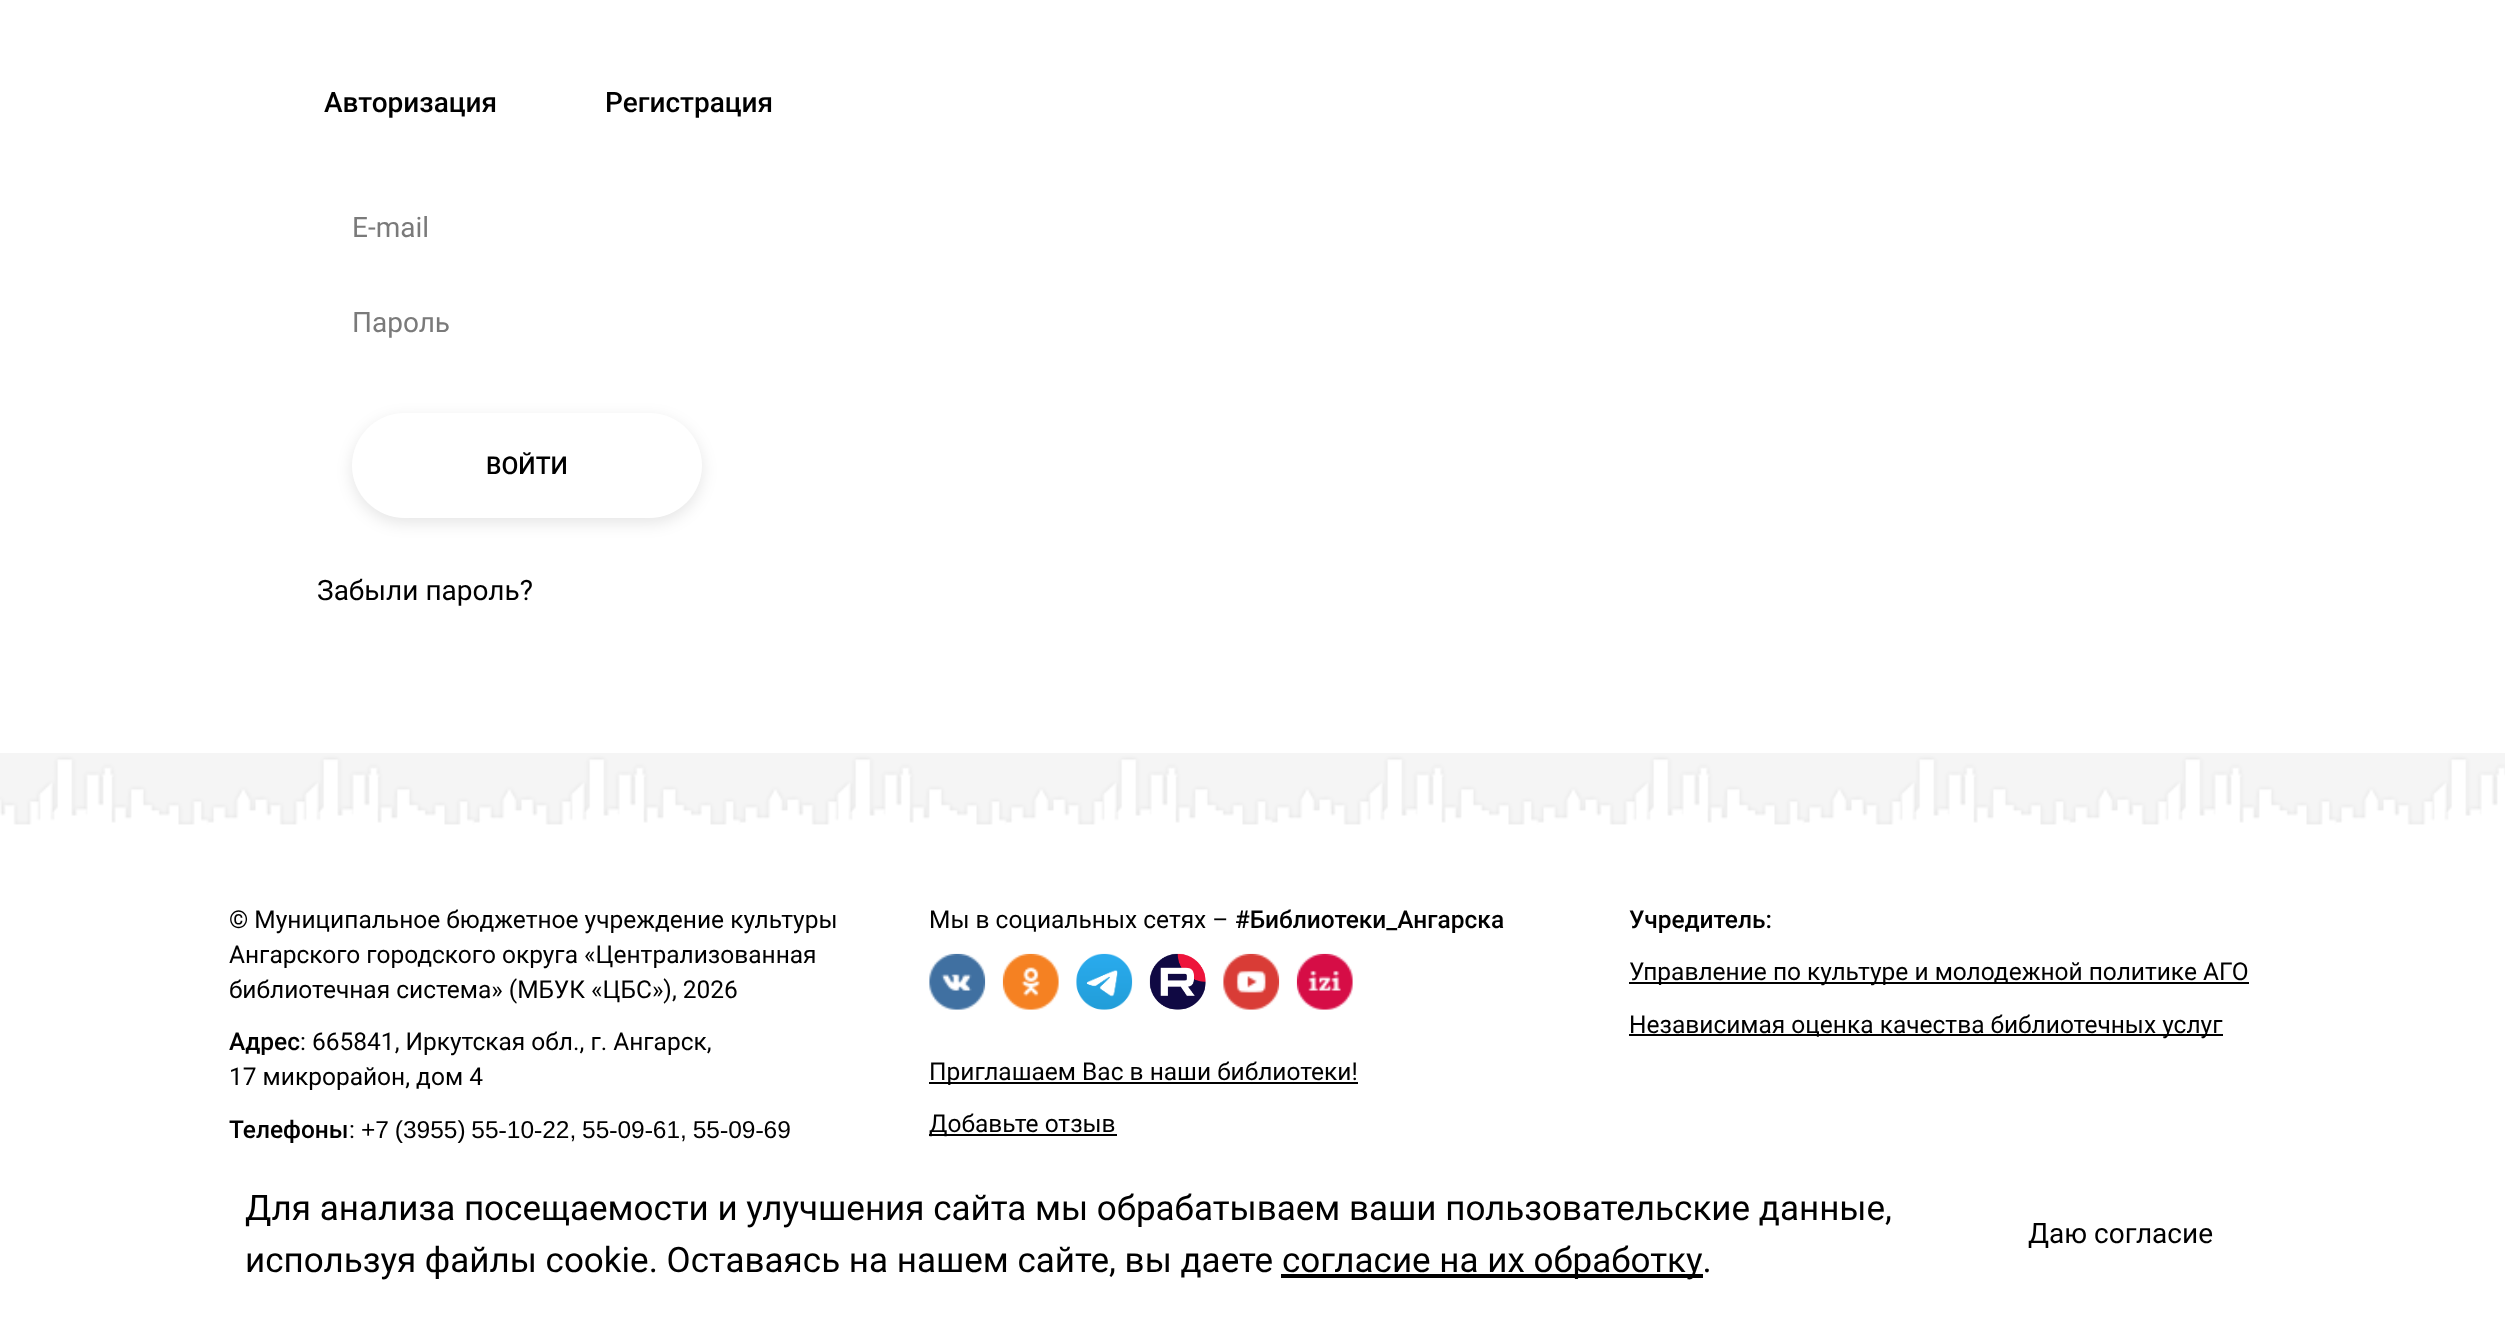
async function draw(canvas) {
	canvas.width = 2505;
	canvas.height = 1320;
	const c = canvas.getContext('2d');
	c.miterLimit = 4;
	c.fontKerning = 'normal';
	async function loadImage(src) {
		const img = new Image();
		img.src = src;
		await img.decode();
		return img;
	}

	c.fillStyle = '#fff';
	c.fillRect(0, 0, 2505, 1320);
	c.font = '500 28px Roboto';
	c.fillStyle = '#000';
	c.fillText('Авторизация', 324, 112);
	c.fillText('Регистрация', 605, 112);
	c.font = '28px Roboto';
	c.fillStyle = '#7a7a7a';
	c.fillText('E-mail', 352, 237);
	c.fillText('Пароль', 352, 332);
	c.fillStyle = '#0000001a';
	c.filter = 'blur(8px)';
	c.beginPath();
	c.roundRect(352, 418, 350, 105, 52.5);
	c.fill();
	c.filter = 'none';
	c.fillStyle = '#fff';
	c.beginPath();
	c.roundRect(352, 413, 350, 105, 52.5);
	c.fill();
	c.font = '500 24.5px Roboto';
	c.fillStyle = '#000';
	c.fillText('ВОЙТИ', 486, 474);
	c.font = '28px Roboto';
	c.fillText('Забыли пароль?', 317, 600);
	c.drawImage(await loadImage('img1.png'), 0, 753, 2505, 72);
	c.font = '24.5px Roboto';
	for (const [text, x, y] of [
		['© Муниципальное бюджетное учреждение культуры', 229, 928],
		['Ангарского городского округа «Централизованная', 229, 963],
		['библиотечная система» (МБУК «ЦБС»), 2026', 229, 998],
	]) {
		c.fillText(text, x, y);
	}
	c.font = '500 24.5px Roboto';
	c.fillText('Адрес', 229, 1050);
	c.font = '24.5px Roboto';
	c.fillText(': 665841, Иркутская обл., г. Ангарск,', 300, 1050);
	c.fillText('17 микрорайон, дом 4', 229, 1085);
	c.font = '500 24.5px Roboto';
	c.fillText('Телефоны', 229, 1138);
	c.font = '24.5px Roboto';
	c.fillText(':', 349, 1138);
	c.wordSpacing = '-1px';
	c.font = '24.5px Liberation Sans';
	c.fillText('+7 (3955) 55‑10‑22, 55‑09‑61, 55‑09‑69', 361, 1138);
	c.wordSpacing = '0px';
	c.font = '24.5px Roboto';
	c.fillText('Мы в социальных сетях –', 929, 928);
	c.font = '500 24.5px Roboto';
	c.fillText('#Библиотеки_Ангарска', 1235, 928);
	c.drawImage(await loadImage('img2.png'), 929, 953, 57, 57);
	c.drawImage(await loadImage('img3.png'), 1002, 953, 57, 57);
	c.drawImage(await loadImage('img4.png'), 1076, 953, 57, 57);
	c.drawImage(await loadImage('img5.png'), 1149, 953, 57, 57);
	c.drawImage(await loadImage('img6.png'), 1223, 953, 57, 57);
	c.drawImage(await loadImage('img7.png'), 1296, 953, 57, 57);
	c.fillRect(929, 1082, 429, 2);
	c.font = '24.5px Roboto';
	c.fillText('Приглашаем Вас в наши библиотеки!', 929, 1080);
	c.fillRect(929, 1134, 188, 2);
	c.fillText('Добавьте отзыв', 929, 1132);
	c.font = '500 24.5px Roboto';
	c.fillText('Учредитель:', 1629, 928);
	c.fillRect(1629, 982, 620, 2);
	c.font = '24.5px Roboto';
	c.fillText('Управление по культуре и молодежной политике АГО', 1629, 980);
	c.fillRect(1629, 1034, 594, 2);
	c.fillText('Независимая оценка качества библиотечных услуг', 1629, 1033);
	c.font = '35px Roboto';
	c.fillText('Для анализа посещаемости и улучшения сайта мы обрабатываем ваши пользовательские данные,', 245, 1220);
	c.fillText('используя файлы cookie. Оставаясь на нашем сайте, вы даете', 245, 1272);
	c.fillRect(1281, 1274, 422, 4);
	c.fillText('согласие на их обработку.', 1282, 1272);
	c.font = '28px Roboto';
	c.fillText('Даю согласие', 2028, 1243);
}

draw(document.querySelector('canvas'));
